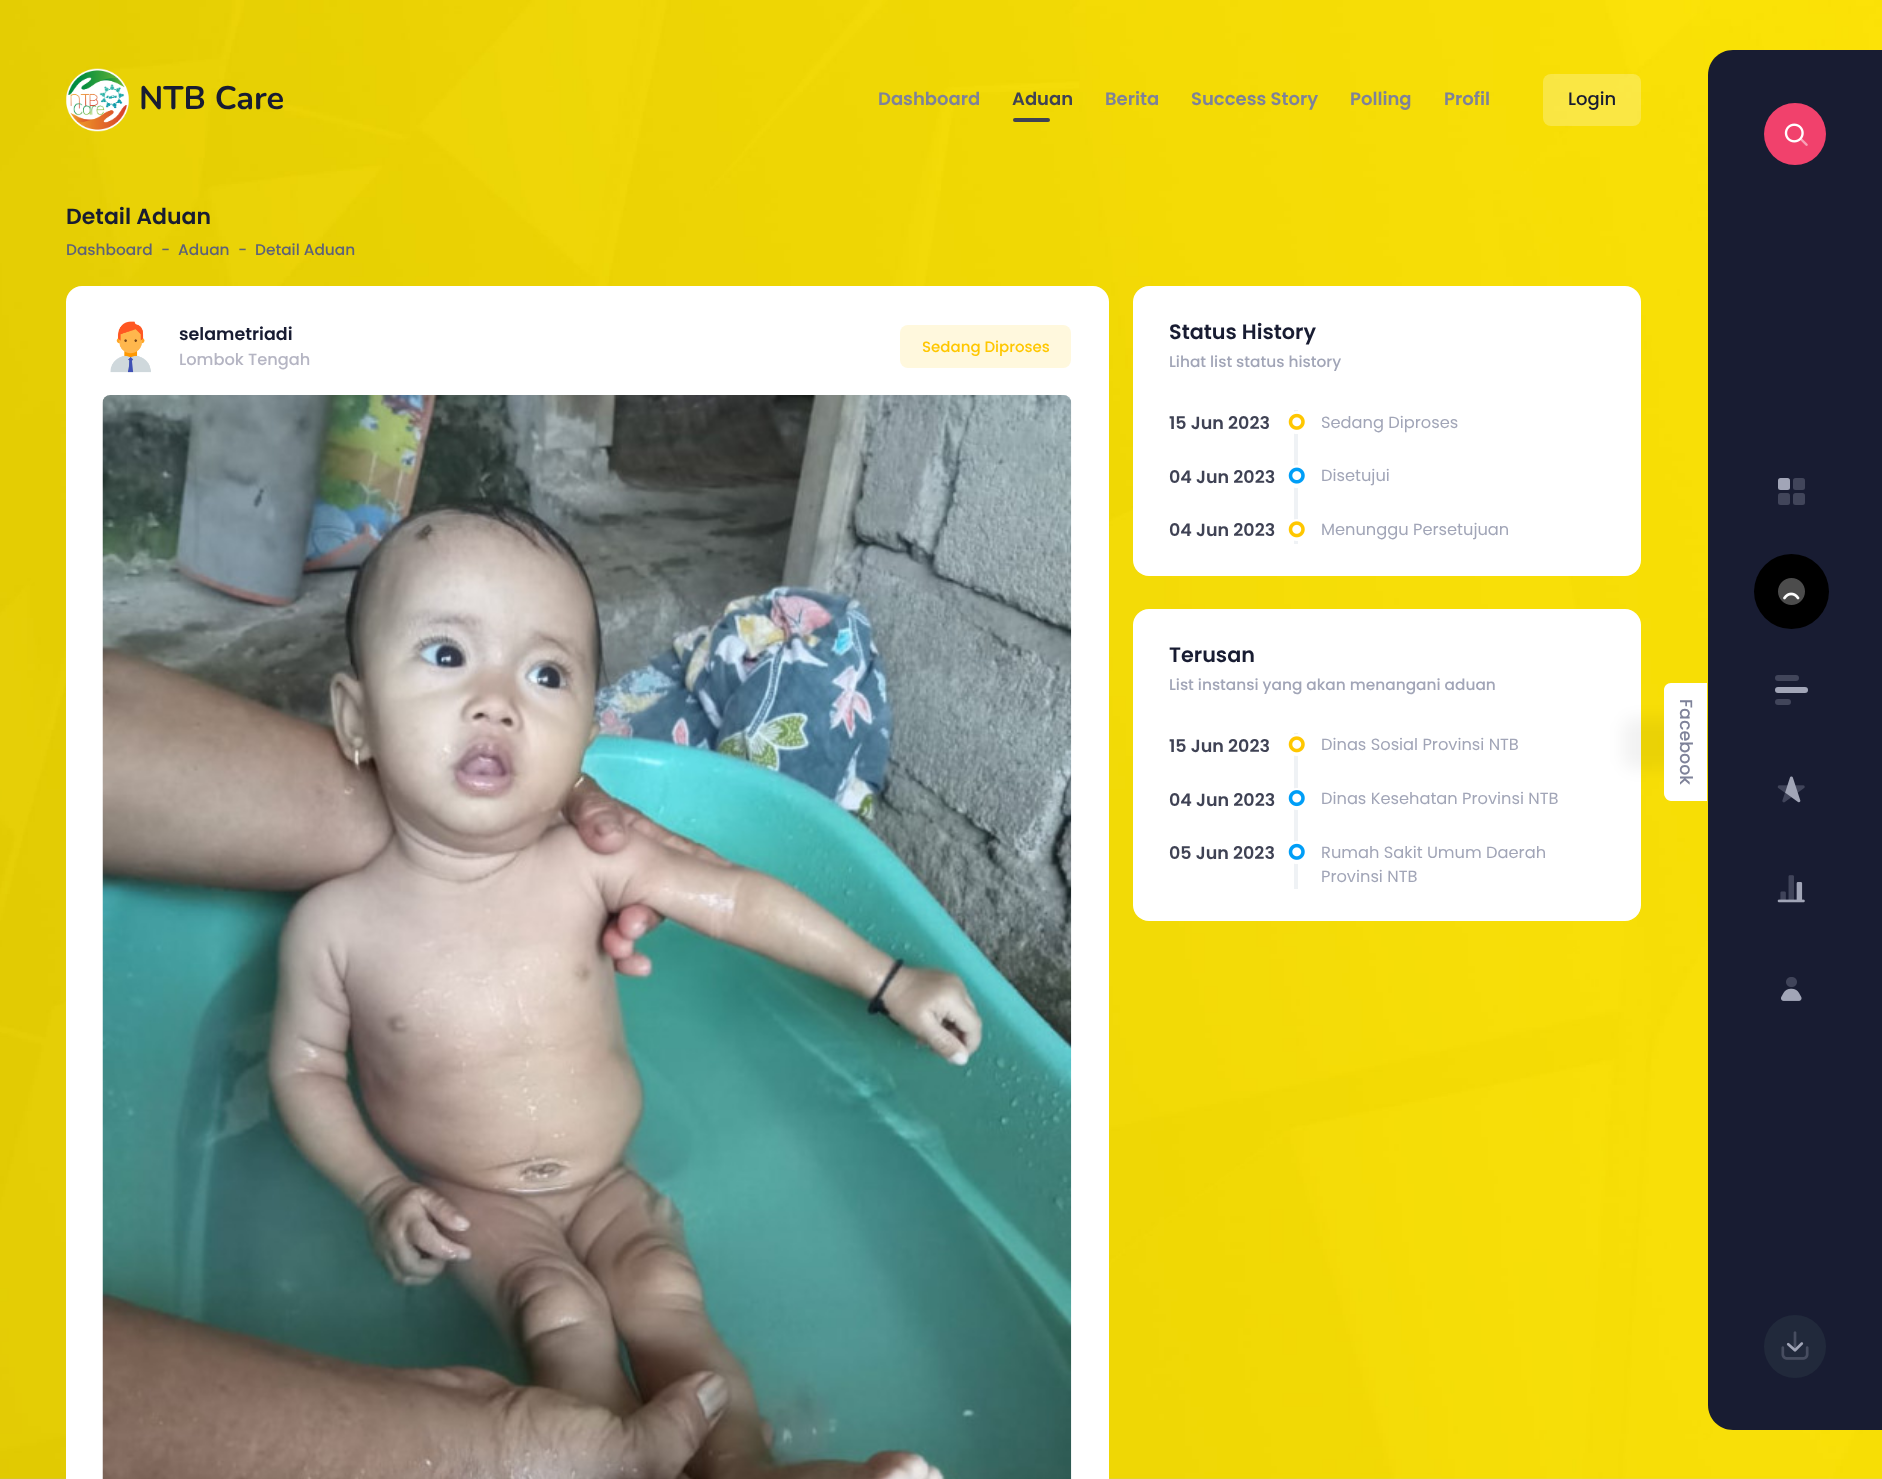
async function draw(canvas) {
	canvas.width = 1882;
	canvas.height = 1479;
	const c = canvas.getContext('2d');
	c.miterLimit = 4;
	c.fontKerning = 'normal';
	async function loadImage(src) {
		const img = new Image();
		img.src = src;
		await img.decode();
		return img;
	}

	c.fillStyle = '#fff';
	c.fillRect(0, 0, 1882, 1479);
	c.drawImage(await loadImage('img1.png'), 0, 0, 1882, 1479);
	c.drawImage(await loadImage('img2.png'), 66, 68, 63, 64);
	c.font = '200 32.5px Nunito';
	c.fillStyle = '#181c32';
	c.fillText('NTB Care', 139, 109);
	c.font = '600 18px Poppins';
	c.fillStyle = '#7e8299';
	c.fillText('Dashboard', 878, 105);
	c.fillStyle = '#3f4254';
	c.fillText('Aduan', 1012, 105);
	c.beginPath();
	c.roundRect(1013, 118, 37, 4, 2);
	c.fill();
	c.fillStyle = '#7e8299';
	for (const [text, x, y] of [
		['Berita', 1105, 105],
		['Success Story', 1191, 105],
		['Polling', 1350, 105],
		['Profil', 1444, 105],
	]) {
		c.fillText(text, x, y);
	}
	c.fillStyle = '#ffffff40';
	c.beginPath();
	c.roundRect(1543, 74, 98, 52, 8);
	c.fill();
	c.font = '500 18px Poppins';
	c.fillStyle = '#181c32';
	c.fillText('Login', 1568, 105);
	c.font = '600 22px Poppins';
	c.fillText('Detail Aduan', 66, 224);
	c.font = '500 15.4px Poppins';
	c.fillStyle = '#5e6278';
	for (const [text, x, y] of [
		['Dashboard', 66, 255],
		['-', 161, 255],
		['Aduan', 178, 255],
		['-', 238, 255],
		['Detail Aduan', 255, 255],
	]) {
		c.fillText(text, x, y);
	}
	c.fillStyle = '#fff';
	c.beginPath();
	c.roundRect(66, 286, 1043, 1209, 16);
	c.fill();
	c.drawImage(await loadImage('img3.png'), 110, 321, 41, 52);
	c.font = '600 17.5px Poppins';
	c.fillStyle = '#181c32';
	c.fillText('selametriadi', 179, 340);
	c.font = '500 16.25px Poppins';
	c.fillStyle = '#b5b5c3';
	c.fillText('Lombok Tengah', 179, 365);
	c.fillStyle = '#fff8dd';
	c.beginPath();
	c.roundRect(900, 325, 171, 43, 8);
	c.fill();
	c.font = '500 15px Poppins';
	c.fillStyle = '#ffc700';
	c.fillText('Sedang Diproses', 922, 352);
	c.drawImage(await loadImage('img4.png'), 102, 395, 970, 1084);
	c.fillStyle = '#fff';
	c.beginPath();
	c.roundRect(1133, 286, 508, 290, 16);
	c.fill();
	c.font = '600 20.75px Poppins';
	c.fillStyle = '#181c32';
	c.fillText('Status History', 1169, 339);
	c.font = '500 15.4px Poppins';
	c.fillStyle = '#a1a5b7';
	c.fillText('Lihat list status history', 1169, 367);
	c.fillStyle = '#eff2f5';
	c.fillRect(1294, 410, 4, 134);
	c.font = '600 17.5px Poppins';
	c.fillStyle = '#3f4254';
	c.fillText('15 Jun 2023', 1169, 429);
	c.fillStyle = '#fff';
	c.beginPath();
	c.arc(1297.5, 422.5, 7.5, 0, 2 * Math.PI);
	c.fill();
	c.strokeStyle = '#fff';
	c.lineWidth = 8;
	c.stroke();
	c.drawImage(await loadImage('img5.png'), 1288, 413, 17, 17);
	c.font = '16.25px Poppins';
	c.fillStyle = '#a1a5b7';
	c.fillText('Sedang Diproses', 1321, 428);
	c.font = '600 17.5px Poppins';
	c.fillStyle = '#3f4254';
	c.fillText('04 Jun 2023', 1169, 483);
	c.fillStyle = '#fff';
	c.beginPath();
	c.arc(1297.5, 476.5, 7.5, 0, 2 * Math.PI);
	c.fill();
	c.stroke();
	c.drawImage(await loadImage('img6.png'), 1288, 467, 17, 17);
	c.font = '16.25px Poppins';
	c.fillStyle = '#a1a5b7';
	c.fillText('Disetujui', 1321, 481);
	c.font = '600 17.5px Poppins';
	c.fillStyle = '#3f4254';
	c.fillText('04 Jun 2023', 1169, 536);
	c.fillStyle = '#fff';
	c.beginPath();
	c.roundRect(1290, 523, 15, 14, 7);
	c.fill();
	c.stroke();
	c.drawImage(await loadImage('img7.png'), 1288, 521, 17, 17);
	c.font = '16.25px Poppins';
	c.fillStyle = '#a1a5b7';
	c.fillText('Menunggu Persetujuan', 1321, 535);
	c.fillStyle = '#fff';
	c.beginPath();
	c.roundRect(1133, 609, 508, 312, 16);
	c.fill();
	c.font = '600 20.75px Poppins';
	c.fillStyle = '#181c32';
	c.fillText('Terusan', 1169, 662);
	c.font = '500 15.4px Poppins';
	c.fillStyle = '#a1a5b7';
	c.fillText('List instansi yang akan menangani aduan', 1169, 690);
	c.fillStyle = '#eff2f5';
	c.fillRect(1294, 733, 4, 156);
	c.font = '600 17.5px Poppins';
	c.fillStyle = '#3f4254';
	c.fillText('15 Jun 2023', 1169, 752);
	c.fillStyle = '#fff';
	c.beginPath();
	c.roundRect(1290, 738, 15, 14, 7);
	c.fill();
	c.stroke();
	c.drawImage(await loadImage('img7.png'), 1288, 736, 17, 17);
	c.font = '16.25px Poppins';
	c.fillStyle = '#a1a5b7';
	c.fillText('Dinas Sosial Provinsi NTB', 1321, 750);
	c.font = '600 17.5px Poppins';
	c.fillStyle = '#3f4254';
	c.fillText('04 Jun 2023', 1169, 806);
	c.fillStyle = '#fff';
	c.beginPath();
	c.roundRect(1290, 792, 15, 14, 7);
	c.fill();
	c.stroke();
	c.drawImage(await loadImage('img8.png'), 1288, 790, 17, 17);
	c.font = '16.25px Poppins';
	c.fillStyle = '#a1a5b7';
	c.fillText('Dinas Kesehatan Provinsi NTB', 1321, 804);
	c.font = '600 17.5px Poppins';
	c.fillStyle = '#3f4254';
	c.fillText('05 Jun 2023', 1169, 859);
	c.fillStyle = '#fff';
	c.beginPath();
	c.arc(1297.5, 852.5, 7.5, 0, 2 * Math.PI);
	c.fill();
	c.stroke();
	c.drawImage(await loadImage('img9.png'), 1288, 843, 17, 17);
	c.font = '16.25px Poppins';
	c.fillStyle = '#a1a5b7';
	c.fillText('Rumah Sakit Umum Daerah', 1321, 858);
	c.fillText('Provinsi NTB', 1321, 882);
	c.fillStyle = '#0000000d';
	c.filter = 'blur(8px)';
	c.beginPath();
	c.roundRect(1623, 718, 126, 51, 11);
	c.fill();
	c.filter = 'none';
	c.fillStyle = '#181c32';
	c.beginPath();
	c.moveTo(1733, 50);
	c.lineTo(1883, 50);
	c.lineTo(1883, 1430);
	c.lineTo(1733, 1430);
	c.bezierCurveTo(1719, 1430, 1708, 1419, 1708, 1405);
	c.lineTo(1708, 75);
	c.bezierCurveTo(1708, 61, 1719, 50, 1733, 50);
	c.closePath();
	c.fill();
	c.fillStyle = '#f1416c';
	c.beginPath();
	c.arc(1795, 134, 31, 0, 2 * Math.PI);
	c.fill();
	c.drawImage(await loadImage('img10.png'), 1784, 123, 24, 23);
	c.fillStyle = '#a1a5b7';
	c.beginPath();
	c.roundRect(1778, 478, 12, 12, 2.5);
	c.fill();
	c.fillStyle = '#41455a';
	c.beginPath();
	c.roundRect(1793, 478, 12, 12, 2.5);
	c.fill();
	c.beginPath();
	c.roundRect(1778, 493, 12, 12, 2.5);
	c.fill();
	c.beginPath();
	c.roundRect(1793, 493, 12, 12, 2.5);
	c.fill();
	c.fillStyle = '#000';
	c.beginPath();
	c.arc(1791.5, 591.5, 37.5, 0, 2 * Math.PI);
	c.fill();
	c.drawImage(await loadImage('img11.png'), 1778, 578, 27, 27);
	c.fillStyle = '#41455a';
	c.beginPath();
	c.roundRect(1775, 675, 24, 6, 3);
	c.fill();
	c.fillStyle = '#a1a5b7';
	c.beginPath();
	c.roundRect(1775, 687, 33, 6, 3);
	c.fill();
	c.fillStyle = '#41455a';
	c.beginPath();
	c.roundRect(1775, 699, 16, 6, 3);
	c.fill();
	c.drawImage(await loadImage('img12.png'), 1777, 776, 28, 27);
	c.drawImage(await loadImage('img13.png'), 1777, 875, 28, 28);
	c.drawImage(await loadImage('img14.png'), 1781, 977, 21, 24);
	c.fillStyle = '#21293b';
	c.beginPath();
	c.roundRect(1764, 1315, 62, 63, 31);
	c.fill();
	c.drawImage(await loadImage('img15.png'), 1781, 1331, 28, 29);
	c.fillStyle = '#fff';
	c.beginPath();
	c.moveTo(1707, 683);
	c.lineTo(1707, 801);
	c.lineTo(1671, 801);
	c.bezierCurveTo(1667, 801, 1664, 797, 1664, 793);
	c.lineTo(1664, 690);
	c.bezierCurveTo(1664, 686, 1667, 683, 1671, 683);
	c.closePath();
	c.fill();
	c.font = '500 17.5px Poppins';
	c.fillStyle = '#7e8299';
	c.save();
	c.translate(1680, 699);
	c.rotate(90 * Math.PI / 180);
	c.fillText('Facebook', 0, 0);
	c.restore();
}

draw(document.querySelector('canvas'));
